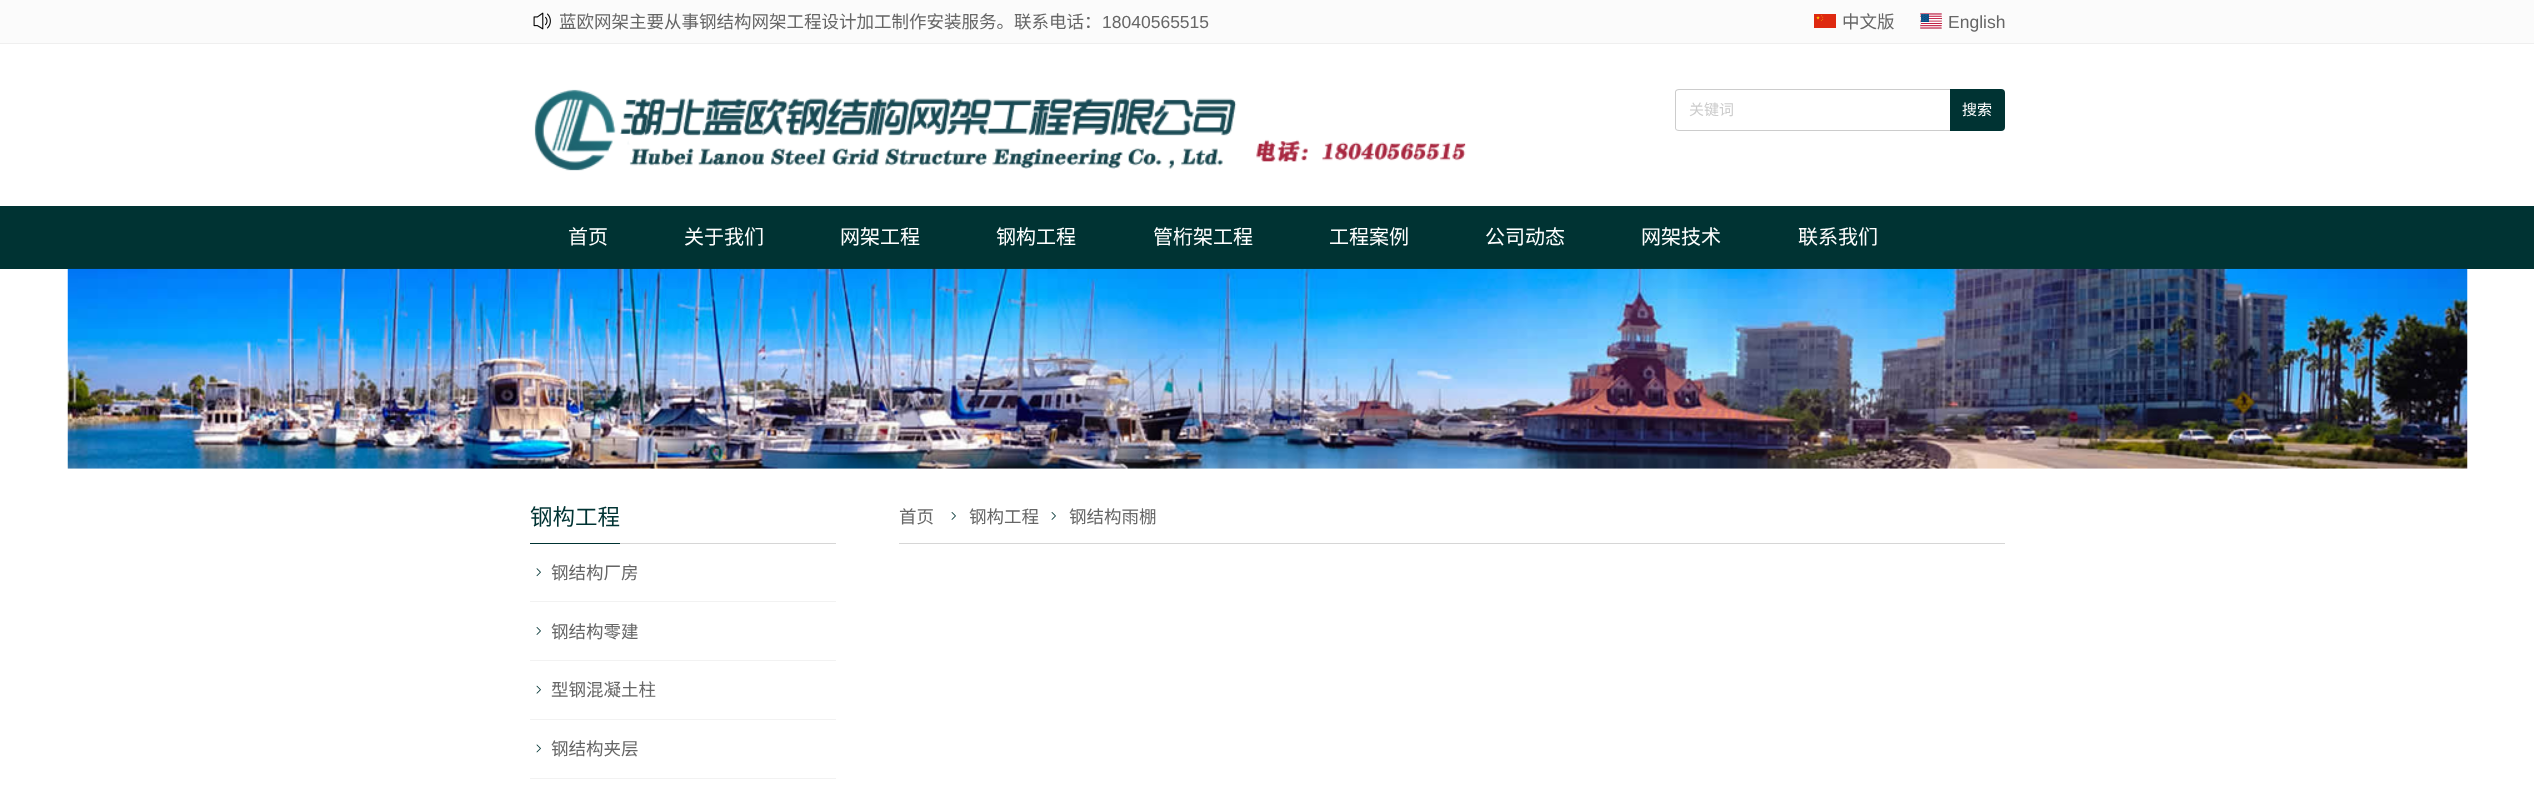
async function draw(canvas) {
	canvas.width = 2534;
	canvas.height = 793;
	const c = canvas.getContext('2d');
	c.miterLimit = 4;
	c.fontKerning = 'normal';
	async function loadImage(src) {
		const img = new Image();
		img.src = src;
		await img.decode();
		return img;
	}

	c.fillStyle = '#fff';
	c.fillRect(0, 0, 2534, 793);
	c.fillStyle = '#fbfbfb';
	c.fillRect(0, 0, 2534, 43);
	c.fillStyle = '#efefef';
	c.fillRect(0, 43, 2534, 1);
	c.drawImage(await loadImage('img1.png'), 533, 12, 18, 18);
	c.font = '17.5px Noto Sans CJK SC';
	c.fillStyle = '#666';
	c.fillText('蓝欧网架主要从事钢结构网架工程设计加工制作安装服务。联系电话：', 559, 28);
	c.font = '17.5px Liberation Sans';
	c.fillText('18040565515', 1102, 28);
	c.drawImage(await loadImage('img2.png'), 1814, 14, 22, 14);
	c.font = '17.5px Noto Sans CJK SC';
	c.fillText('中文版', 1842, 28);
	c.drawImage(await loadImage('img3.png'), 1920, 13, 22, 16);
	c.font = '17.5px Liberation Sans';
	c.fillText('English', 1948, 28);
	c.drawImage(await loadImage('img4.png'), 534, 89, 932, 82);
	c.fillStyle = '#ccc';
	c.beginPath();
	c.moveTo(1679, 89);
	c.lineTo(1950, 89);
	c.lineTo(1950, 131);
	c.lineTo(1679, 131);
	c.bezierCurveTo(1677, 131, 1675, 130, 1675, 128);
	c.lineTo(1675, 92);
	c.bezierCurveTo(1675, 90, 1677, 89, 1679, 89);
	c.closePath();
	c.moveTo(1679, 90);
	c.lineTo(1950, 90);
	c.lineTo(1950, 130);
	c.lineTo(1679, 130);
	c.bezierCurveTo(1677, 130, 1676, 129, 1676, 128);
	c.lineTo(1676, 92);
	c.bezierCurveTo(1676, 91, 1677, 90, 1679, 90);
	c.closePath();
	c.fill('evenodd');
	c.font = '15px Noto Sans CJK SC';
	c.fillText('关键词', 1689, 115);
	c.fillStyle = '#033';
	c.beginPath();
	c.roundRect(1950, 89, 55, 42, [0, 4, 4, 0]);
	c.fill();
	c.fillStyle = '#fff';
	c.fillText('搜索', 1962, 115);
	c.fillStyle = '#033';
	c.fillRect(0, 206, 2534, 63);
	c.font = '20px Noto Sans CJK SC';
	c.fillStyle = '#fff';
	for (const [text, x, y] of [
		['首页', 568, 244],
		['关于我们', 684, 244],
		['网架工程', 840, 244],
		['钢构工程', 996, 244],
		['管桁架工程', 1153, 244],
		['工程案例', 1329, 244],
		['公司动态', 1485, 244],
		['网架技术', 1641, 244],
		['联系我们', 1798, 244],
	]) {
		c.fillText(text, x, y);
	}
	c.drawImage(await loadImage('img5.png'), 67, 268, 2401, 201);
	c.fillStyle = '#d6d6d6';
	c.fillRect(620, 543, 216, 1);
	c.fillStyle = '#033';
	c.fillRect(530, 543, 90, 1);
	c.font = '22.5px Noto Sans CJK SC';
	c.fillText('钢构工程', 530, 525);
	c.fillStyle = '#f2f2f2';
	c.fillRect(530, 601, 306, 1);
	c.drawImage(await loadImage('img6.png'), 536, 568, 5, 9);
	c.font = '17.5px Noto Sans CJK SC';
	c.fillStyle = '#666';
	c.fillText('钢结构厂房', 551, 579);
	c.fillStyle = '#f2f2f2';
	c.fillRect(530, 660, 306, 1);
	c.drawImage(await loadImage('img7.png'), 536, 627, 5, 8);
	c.fillStyle = '#666';
	c.fillText('钢结构零建', 551, 638);
	c.fillStyle = '#f2f2f2';
	c.fillRect(530, 719, 306, 1);
	c.drawImage(await loadImage('img8.png'), 536, 685, 5, 9);
	c.fillStyle = '#666';
	c.fillText('型钢混凝土柱', 551, 696);
	c.fillStyle = '#f2f2f2';
	c.fillRect(530, 778, 306, 1);
	c.drawImage(await loadImage('img9.png'), 536, 744, 5, 9);
	c.fillStyle = '#666';
	c.fillText('钢结构夹层', 551, 755);
	c.fillStyle = '#d6d6d6';
	c.fillRect(899, 543, 1106, 1);
	c.fillStyle = '#666';
	c.fillText('首页', 899, 523);
	c.drawImage(await loadImage('img7.png'), 951, 512, 5, 8);
	c.fillText('钢构工程', 969, 523);
	c.drawImage(await loadImage('img7.png'), 1051, 512, 5, 8);
	c.fillText('钢结构雨棚', 1069, 523);
}

draw(document.querySelector('canvas'));
